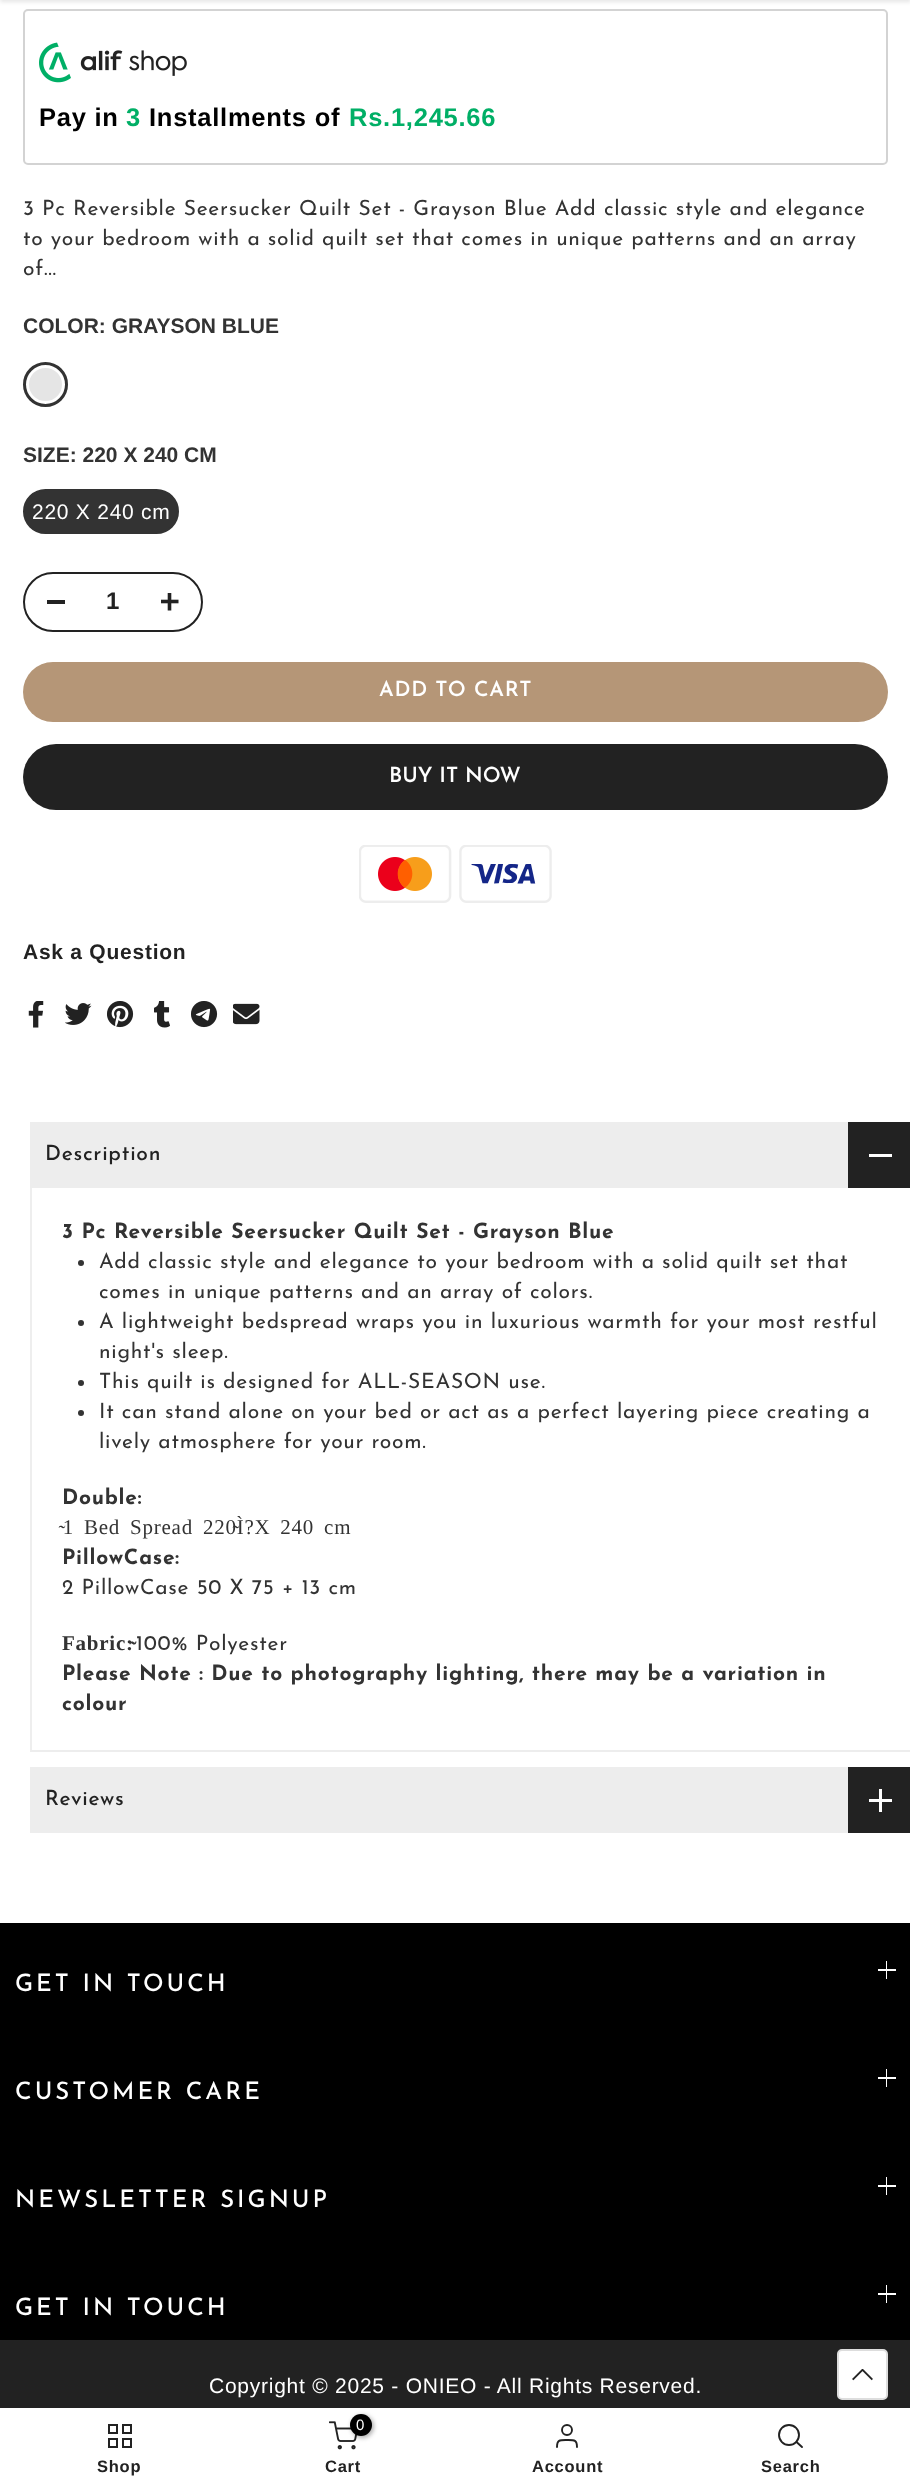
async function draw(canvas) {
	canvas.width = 910;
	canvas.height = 2489;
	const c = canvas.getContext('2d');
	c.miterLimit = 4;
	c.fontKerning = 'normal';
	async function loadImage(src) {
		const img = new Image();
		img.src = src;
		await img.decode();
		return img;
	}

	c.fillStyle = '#fff';
	c.fillRect(0, 0, 910, 2489);
	c.fillStyle = '#0000001a';
	c.filter = 'blur(2px)';
	c.beginPath();
	c.rect(0, -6, 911, 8);
	c.fill();
	c.filter = 'none';
	c.beginPath();
	c.roundRect(24, 10, 863, 154, 4);
	c.strokeStyle = '#d3d3d3';
	c.lineWidth = 2;
	c.stroke();
	c.drawImage(await loadImage('img1.png'), 39, 42, 148, 41);
	c.letterSpacing = '0.75px';
	c.font = 'bold 25.5px Liberation Sans';
	c.fillStyle = '#000';
	c.fillText('Pay in', 39, 126);
	c.fillStyle = '#00af66';
	c.fillText('3', 126, 126);
	c.fillStyle = '#000';
	c.fillText('Installments of', 149, 126);
	c.fillStyle = '#00af66';
	c.fillText('Rs.1,245.66', 349, 126);
	c.font = '21px Josefin Sans';
	c.fillStyle = '#333';
	for (const [text, x, y] of [
		['3 Pc Reversible Seersucker Quilt Set - Grayson Blue Add classic style and elegance', 23, 215],
		['to your bedroom with a solid quilt set that comes in unique patterns and an array', 23, 245],
		['of...', 23, 275],
	]) {
		c.fillText(text, x, y);
	}
	c.letterSpacing = '0px';
	c.font = 'bold 21px Liberation Sans';
	c.fillText('COLOR: GRAYSON BLUE', 23, 333);
	c.fillStyle = '#e5e5e5';
	c.beginPath();
	c.arc(45.5, 384.5, 22.5, 0, 2 * Math.PI);
	c.fill();
	c.beginPath();
	c.arc(45.5, 384.5, 18, 0, 2 * Math.PI);
	c.strokeStyle = '#fff';
	c.lineWidth = 3;
	c.stroke();
	c.beginPath();
	c.arc(45.5, 384.5, 21, 0, 2 * Math.PI);
	c.strokeStyle = '#333';
	c.stroke();
	c.fillStyle = '#333';
	c.fillText('SIZE: 220 X 240 CM', 23, 462);
	c.beginPath();
	c.roundRect(24, 490, 154, 43, 21.5);
	c.fill();
	c.lineWidth = 2;
	c.stroke();
	c.letterSpacing = '0.75px';
	c.font = '21px Liberation Sans';
	c.fillStyle = '#fff';
	c.fillText('220 X 240 cm', 32, 519);
	c.beginPath();
	c.roundRect(24, 573, 178, 58, 29);
	c.strokeStyle = '#222';
	c.stroke();
	c.fillStyle = '#222';
	c.fillRect(47, 600, 18, 4);
	c.letterSpacing = '0px';
	c.font = 'bold 24px Liberation Sans';
	c.fillText('1', 106, 609);
	c.drawImage(await loadImage('img2.png'), 161, 593, 18, 18);
	c.fillStyle = '#b59677';
	c.beginPath();
	c.roundRect(23, 662, 865, 60, 30);
	c.fill();
	c.letterSpacing = '0.75px';
	c.font = '600 21px Josefin Sans';
	c.fillStyle = '#fff';
	c.fillText('ADD TO CART', 379, 696);
	c.fillStyle = '#222';
	c.beginPath();
	c.roundRect(23, 744, 865, 66, 33);
	c.fill();
	c.letterSpacing = '0px';
	c.fillStyle = '#fff';
	c.fillText('BUY IT NOW', 389, 782);
	c.drawImage(await loadImage('img3.png'), 359, 845, 93, 58);
	c.drawImage(await loadImage('img4.png'), 459, 845, 93, 58);
	c.letterSpacing = '0.75px';
	c.font = 'bold 21px Liberation Sans';
	c.fillStyle = '#222';
	c.fillText('Ask a Question', 23, 959);
	c.drawImage(await loadImage('img5.png'), 28, 1001, 16, 27);
	c.drawImage(await loadImage('img6.png'), 65, 1003, 27, 22);
	c.drawImage(await loadImage('img7.png'), 107, 1001, 27, 27);
	c.drawImage(await loadImage('img8.png'), 154, 1001, 16, 27);
	c.drawImage(await loadImage('img9.png'), 191, 1001, 27, 27);
	c.drawImage(await loadImage('img10.png'), 233, 1003, 27, 22);
	c.fillStyle = '#ededed';
	c.fillRect(30, 1122, 818, 66);
	c.font = '500 21px Josefin Sans';
	c.fillStyle = '#222';
	c.fillText('Description', 45, 1160);
	c.fillRect(848, 1122, 62, 66);
	c.fillStyle = '#fff';
	c.fillRect(869, 1154, 23, 3);
	c.fillStyle = '#ededed';
	c.beginPath();
	c.moveTo(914, 1752);
	c.lineTo(30, 1752);
	c.lineTo(32, 1750);
	c.lineTo(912, 1750);
	c.closePath();
	c.fill();
	c.fillStyle = '#22222214';
	c.beginPath();
	c.moveTo(30, 1752);
	c.lineTo(30, 1188);
	c.lineTo(32, 1188);
	c.lineTo(32, 1750);
	c.closePath();
	c.fill();
	c.font = 'bold 21px Josefin Sans';
	c.fillStyle = '#333';
	c.fillText('3 Pc Reversible Seersucker Quilt Set - Grayson Blue', 62, 1238);
	c.beginPath();
	c.arc(81, 1263, 3, 0, 2 * Math.PI);
	c.fill();
	c.font = '21px Josefin Sans';
	c.fillText('Add classic style and elegance to your bedroom with a solid quilt set that', 99, 1268);
	c.fillText('comes in unique patterns and an array of colors.', 99, 1298);
	c.beginPath();
	c.arc(81, 1323, 3, 0, 2 * Math.PI);
	c.fill();
	c.fillText('A lightweight bedspread wraps you in luxurious warmth for your most restful', 99, 1328);
	c.fillText('night\'s sleep.', 99, 1358);
	c.beginPath();
	c.arc(81, 1383, 3, 0, 2 * Math.PI);
	c.fill();
	c.fillText('This quilt is designed for ALL-SEASON use.', 99, 1388);
	c.beginPath();
	c.arc(81, 1413, 3, 0, 2 * Math.PI);
	c.fill();
	c.fillText('It can stand alone on your bed or act as a perfect layering piece creating a', 99, 1418);
	c.fillText('lively atmosphere for your room.', 99, 1448);
	c.font = 'bold 21px Josefin Sans';
	c.fillText('Double:', 62, 1504);
	c.wordSpacing = '4px';
	c.font = '21px Liberation Serif';
	c.fillText('̴1 Bed Spread 220̴Ì?X 240 cm', 62, 1534);
	c.wordSpacing = '0px';
	c.font = 'bold 21px Josefin Sans';
	c.fillText('PillowCase:', 62, 1564);
	c.font = '21px Josefin Sans';
	c.fillText('2 PillowCase 50 X 75 + 13 cm', 62, 1594);
	c.font = 'bold 21px Liberation Serif';
	c.fillText('Fabric:̴', 62, 1650);
	c.font = '21px Josefin Sans';
	c.fillText('100% Polyester', 136, 1650);
	c.font = 'bold 21px Josefin Sans';
	c.fillText('Please Note : Due to photography lighting, there may be a variation in', 62, 1680);
	c.fillText('colour', 62, 1710);
	c.fillStyle = '#ededed';
	c.fillRect(30, 1767, 818, 66);
	c.font = '500 21px Josefin Sans';
	c.fillStyle = '#222';
	c.fillText('Reviews', 45, 1805);
	for (const [x, y, w, h, color] of [
		[848, 1767, 62, 66, '#222'],
		[879, 1789, 3, 23, '#fff'],
		[869, 1799, 23, 3, '#fff'],
		[0, 1923, 910, 417, '#000'],
		[886, 1961, 1, 18, '#fff'],
		[878, 1969, 18, 2, '#fff'],
	]) {
		c.fillStyle = color;
		c.fillRect(x, y, w, h);
	}
	c.letterSpacing = '3px';
	c.font = '500 24px Josefin Sans';
	c.fillText('GET IN TOUCH', 15, 1991);
	c.fillRect(886, 2069, 1, 18);
	c.fillRect(878, 2077, 18, 2);
	c.fillText('CUSTOMER CARE', 15, 2099);
	c.fillRect(886, 2177, 1, 18);
	c.fillRect(878, 2185, 18, 2);
	c.fillText('NEWSLETTER SIGNUP', 15, 2207);
	c.fillRect(886, 2285, 1, 18);
	c.fillRect(878, 2293, 18, 2);
	c.fillText('GET IN TOUCH', 15, 2315);
	c.fillStyle = '#222';
	c.fillRect(0, 2340, 910, 68);
	c.letterSpacing = '0.75px';
	c.font = '21px Liberation Sans';
	c.fillStyle = '#fff';
	c.fillText('Copyright © 2025 - ONIEO - All Rights Reserved.', 209, 2393);
	c.beginPath();
	c.roundRect(838, 2350, 49, 49, 4);
	c.fill();
	c.strokeStyle = '#ddd';
	c.stroke();
	c.drawImage(await loadImage('img11.png'), 852, 2369, 21, 12);
	c.strokeStyle = '#222';
	c.strokeRect(109, 2425, 8, 8);
	c.strokeRect(123, 2425, 8, 8);
	c.strokeRect(109, 2439, 8, 8);
	c.strokeRect(123, 2439, 8, 8);
	c.font = 'bold 16.5px Liberation Sans';
	c.fillStyle = '#222';
	c.fillText('Shop', 97, 2472);
	c.drawImage(await loadImage('img12.png'), 329, 2421, 28, 29);
	c.fillStyle = '#0000004d';
	c.filter = 'blur(2px)';
	c.beginPath();
	c.roundRect(351, 2415, 23, 23, 11.5);
	c.fill();
	c.filter = 'none';
	c.fillStyle = '#000';
	c.beginPath();
	c.arc(361, 2425, 11, 0, 2 * Math.PI);
	c.fill();
	c.letterSpacing = '0px';
	c.font = '15px Liberation Sans';
	c.fillStyle = '#fff';
	c.fillText('0', 356, 2430);
	c.letterSpacing = '0.75px';
	c.font = 'bold 16.5px Liberation Sans';
	c.fillStyle = '#222';
	c.fillText('Cart', 325, 2472);
	c.beginPath();
	c.arc(567, 2430, 5, 0, 2 * Math.PI);
	c.lineWidth = 1.9;
	c.stroke();
	c.beginPath();
	c.moveTo(577, 2447);
	c.bezierCurveTo(577, 2439.5, 574, 2440, 567, 2440);
	c.bezierCurveTo(560, 2440, 557, 2439.5, 557, 2447);
	c.lineCap = 'round';
	c.lineJoin = 'round';
	c.stroke();
	c.fillText('Account', 532, 2472);
	c.beginPath();
	c.arc(789, 2435, 10, 0, 2 * Math.PI);
	c.stroke();
	c.beginPath();
	c.moveTo(802, 2447);
	c.lineTo(796.5, 2442);
	c.stroke();
	c.fillText('Search', 761, 2472);
}

draw(document.querySelector('canvas'));
